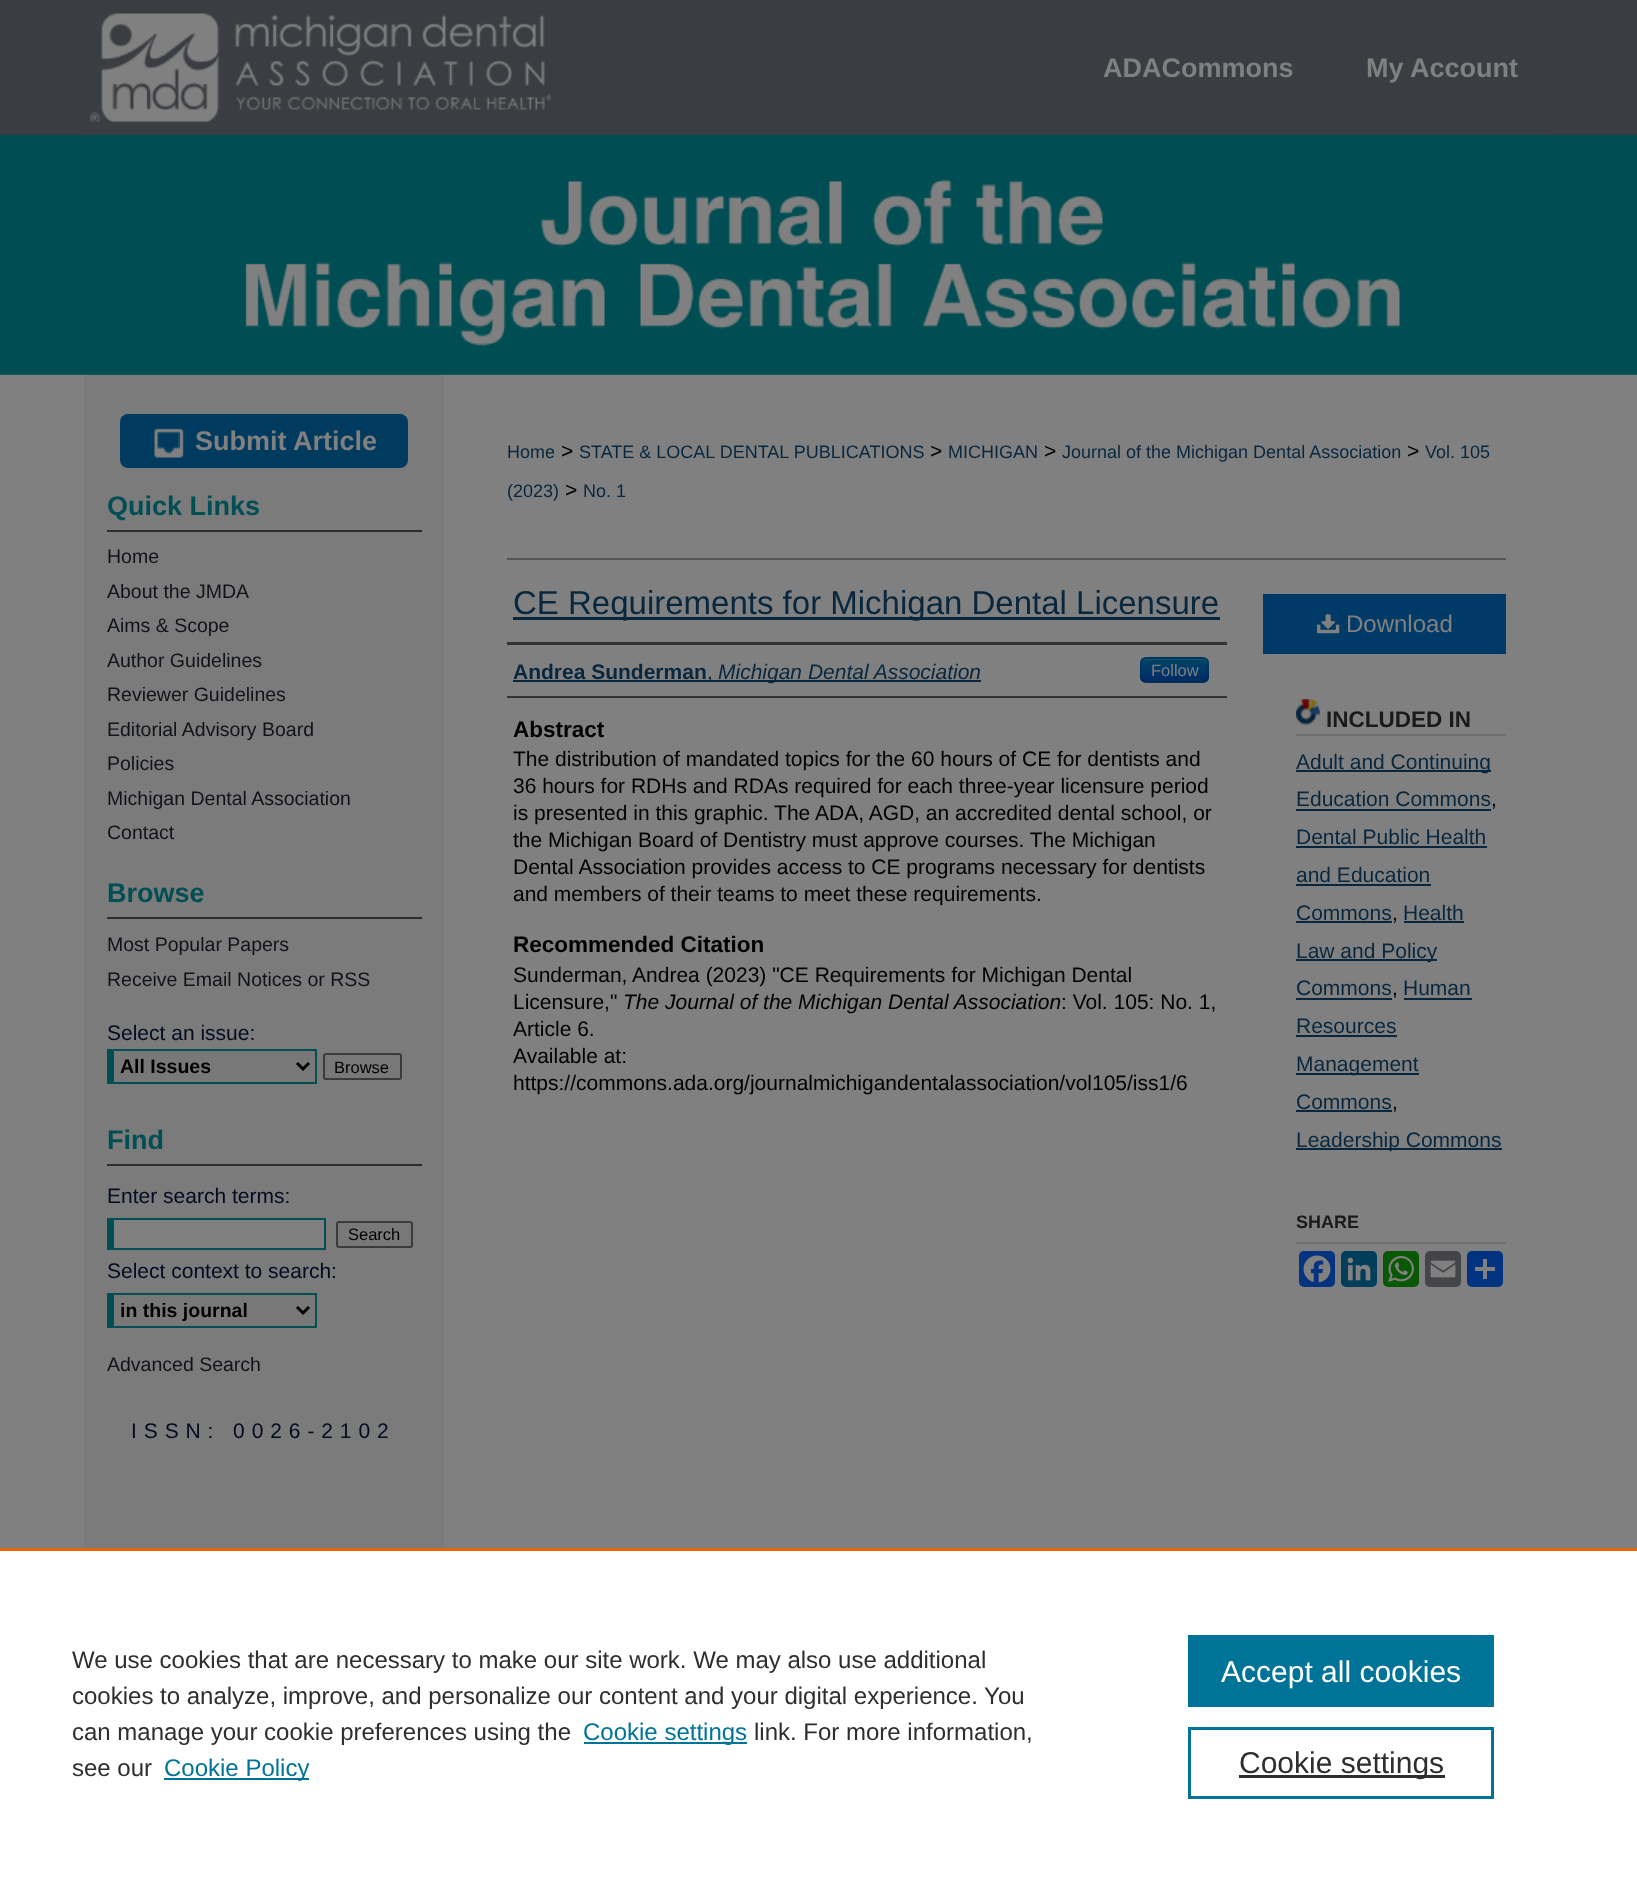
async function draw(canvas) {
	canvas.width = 1637;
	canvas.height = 1878;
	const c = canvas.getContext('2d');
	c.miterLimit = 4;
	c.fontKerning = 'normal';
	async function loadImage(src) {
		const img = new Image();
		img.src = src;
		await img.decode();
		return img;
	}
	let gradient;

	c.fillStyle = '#808080';
	c.fillRect(0, 0, 1637, 1878);
	c.drawImage(await loadImage('img1.png'), 0, 0, 1637, 375);
	c.fillStyle = '#3a3e42';
	c.fillRect(84, 134, 1470, 1);
	c.drawImage(await loadImage('img2.png'), 89, 13, 462, 110);
	c.font = 'bold 27px Liberation Sans';
	c.fillStyle = '#808080';
	c.fillText('ADACommons', 1103, 77);
	c.fillText('My Account', 1366, 77);
	c.fillStyle = '#004e53';
	c.fillRect(84, 135, 1470, 1);
	c.drawImage(await loadImage('img3.png'), 84, 179, 1470, 196);
	c.fillStyle = '#7b7b7b';
	c.fillRect(84, 375, 360, 1173);
	c.fillStyle = '#003b5f';
	c.beginPath();
	c.roundRect(120, 414, 288, 54, 8);
	c.fill();
	c.drawImage(await loadImage('img4.png'), 154, 428, 30, 30);
	c.fillStyle = '#808080';
	c.fillText('Submit Article', 195, 450);
	c.fillStyle = '#2c2d2e';
	c.fillRect(107, 530, 315, 2);
	c.fillStyle = '#014e54';
	c.fillText('Quick Links', 107, 515);
	c.font = '19.5px Liberation Sans';
	c.fillStyle = '#101319';
	for (const [text, x, y] of [
		['Home', 107, 563],
		['About the JMDA', 107, 598],
		['Aims & Scope', 107, 632],
		['Author Guidelines', 107, 667],
		['Reviewer Guidelines', 107, 701],
		['Editorial Advisory Board', 107, 736],
		['Policies', 107, 770],
		['Michigan Dental Association', 107, 805],
		['Contact', 107, 839],
	]) {
		c.fillText(text, x, y);
	}
	c.fillStyle = '#2c2d2e';
	c.fillRect(107, 917, 315, 2);
	c.font = 'bold 27px Liberation Sans';
	c.fillStyle = '#014e54';
	c.fillText('Browse', 107, 902);
	c.font = '19.5px Liberation Sans';
	c.fillStyle = '#101319';
	c.fillText('Most Popular Papers', 107, 951);
	c.fillText('Receive Email Notices or RSS', 107, 986);
	c.font = '21px Liberation Sans';
	c.fillStyle = '#020b1f';
	c.fillText('Select an issue:', 107, 1040);
	for (const [x, y, w, h, color] of [
		[114, 1051, 201, 31, '#787878'],
		[107, 1049, 210, 2, '#014e54'],
		[315, 1049, 2, 34, '#014e54'],
		[107, 1082, 210, 2, '#014e54'],
		[107, 1049, 7, 34, '#014e54'],
	]) {
		c.fillStyle = color;
		c.fillRect(x, y, w, h);
	}
	c.beginPath();
	c.moveTo(297, 1063);
	c.lineTo(303, 1069);
	c.lineTo(309, 1063);
	c.strokeStyle = '#000';
	c.lineWidth = 3;
	c.stroke();
	c.font = 'bold 19.5px Liberation Sans';
	c.fillStyle = '#000';
	c.fillText('All Issues', 120, 1073);
	c.fillStyle = '#787878';
	c.beginPath();
	c.roundRect(324, 1054, 77, 25, 2);
	c.fill();
	c.strokeStyle = '#3b3b3b';
	c.lineWidth = 2;
	c.stroke();
	c.font = '16.5px Liberation Sans';
	c.fillStyle = '#000';
	c.fillText('Browse', 334, 1073);
	c.fillStyle = '#2c2d2e';
	c.fillRect(107, 1164, 315, 2);
	c.font = 'bold 27px Liberation Sans';
	c.fillStyle = '#014e54';
	c.fillText('Find', 107, 1149);
	c.font = '21px Liberation Sans';
	c.fillStyle = '#020b1f';
	c.fillText('Enter search terms:', 107, 1203);
	for (const [x, y, w, h, color] of [
		[114, 1220, 210, 28, '#808080'],
		[107, 1218, 219, 2, '#014e54'],
		[324, 1218, 2, 32, '#014e54'],
		[107, 1248, 219, 2, '#014e54'],
		[107, 1218, 7, 32, '#014e54'],
	]) {
		c.fillStyle = color;
		c.fillRect(x, y, w, h);
	}
	c.fillStyle = '#787878';
	c.beginPath();
	c.roundRect(337, 1222, 75, 25, 2);
	c.fill();
	c.stroke();
	c.font = '16.5px Liberation Sans';
	c.fillStyle = '#000';
	c.fillText('Search', 348, 1240);
	c.font = '21px Liberation Sans';
	c.fillStyle = '#020b1f';
	c.fillText('Select context to search:', 107, 1278);
	for (const [x, y, w, h, color] of [
		[114, 1295, 201, 31, '#787878'],
		[107, 1293, 210, 2, '#014e54'],
		[315, 1293, 2, 35, '#014e54'],
		[107, 1326, 210, 2, '#014e54'],
		[107, 1293, 7, 35, '#014e54'],
	]) {
		c.fillStyle = color;
		c.fillRect(x, y, w, h);
	}
	c.beginPath();
	c.moveTo(297, 1307);
	c.lineTo(303, 1313);
	c.lineTo(309, 1307);
	c.strokeStyle = '#000';
	c.lineWidth = 3;
	c.stroke();
	c.font = 'bold 19.5px Liberation Sans';
	c.fillStyle = '#000';
	c.fillText('in this journal', 120, 1317);
	c.font = '19.5px Liberation Sans';
	c.fillStyle = '#101319';
	c.fillText('Advanced Search', 107, 1371);
	c.letterSpacing = '6.9px';
	c.font = '21px Liberation Sans';
	c.fillStyle = '#020b1f';
	c.fillText('ISSN: 0026-2102', 131, 1438);
	c.letterSpacing = '0px';
	c.font = '18px Liberation Sans';
	c.fillStyle = '#08273e';
	c.fillText('Home', 507, 458);
	c.font = '21px Liberation Sans';
	c.fillStyle = '#000';
	c.fillText('>', 561, 458);
	c.font = '18px Liberation Sans';
	c.fillStyle = '#08273e';
	c.fillText('STATE & LOCAL DENTAL PUBLICATIONS', 579, 458);
	c.font = '21px Liberation Sans';
	c.fillStyle = '#000';
	c.fillText('>', 930, 458);
	c.font = '18px Liberation Sans';
	c.fillStyle = '#08273e';
	c.fillText('MICHIGAN', 948, 458);
	c.font = '21px Liberation Sans';
	c.fillStyle = '#000';
	c.fillText('>', 1044, 458);
	c.font = '18px Liberation Sans';
	c.fillStyle = '#08273e';
	c.fillText('Journal of the Michigan Dental Association', 1062, 458);
	c.font = '21px Liberation Sans';
	c.fillStyle = '#000';
	c.fillText('>', 1407, 458);
	c.font = '18px Liberation Sans';
	c.fillStyle = '#08273e';
	c.fillText('Vol. 105', 1425, 458);
	c.fillText('(2023)', 507, 497);
	c.font = '21px Liberation Sans';
	c.fillStyle = '#000';
	c.fillText('>', 565, 497);
	c.font = '18px Liberation Sans';
	c.fillStyle = '#08273e';
	c.fillText('No. 1', 583, 497);
	c.fillStyle = '#555';
	c.fillRect(507, 558, 999, 2);
	c.fillStyle = '#08273e';
	c.fillRect(513, 617, 707, 3);
	c.font = '33px Liberation Sans';
	c.fillText('CE Requirements for Michigan Dental Licensure', 513, 614);
	c.fillStyle = '#333';
	c.fillRect(507, 642, 720, 3);
	c.fillRect(507, 696, 720, 2);
	c.font = 'bold 21px Liberation Sans';
	c.fillStyle = '#08273e';
	c.fillText('Andrea Sunderman', 513, 679);
	c.fillRect(513, 680, 468, 2);
	c.font = '21px Liberation Sans';
	c.fillText(',', 707, 679);
	c.font = 'italic 21px Liberation Sans';
	c.fillText('Michigan Dental Association', 718, 679);
	c.fillStyle = '#003a66';
	c.beginPath();
	c.roundRect(1140, 657, 69, 26, 6);
	c.fill();
	c.save();
	c.beginPath();
	c.roundRect(1140, 657, 69, 26, 6);
	c.clip();
	gradient = c.createLinearGradient(1175, 659, 1175, 681);
	gradient.addColorStop(0, '#046');
	gradient.addColorStop(1, '#002b66');
	c.fillStyle = gradient;
	c.fillRect(1140, 659, 69, 22);
	c.restore();
	c.fillStyle = '#1a506b';
	c.beginPath();
	c.moveTo(1146, 660);
	c.lineTo(1203, 660);
	c.bezierCurveTo(1205, 660, 1208, 662, 1208, 664);
	c.bezierCurveTo(1208, 661, 1206, 659, 1203, 659);
	c.lineTo(1147, 659);
	c.bezierCurveTo(1144, 659, 1142, 661, 1142, 664);
	c.bezierCurveTo(1142, 662, 1144, 660, 1146, 660);
	c.closePath();
	c.fill();
	c.beginPath();
	c.moveTo(1206.5, 680);
	c.bezierCurveTo(1205.5, 681, 1204.5, 682, 1203, 682);
	c.lineTo(1146, 682);
	c.bezierCurveTo(1144.5, 682, 1143.5, 681, 1142.5, 680);
	c.strokeStyle = '#00000040';
	c.lineWidth = 1.5;
	c.stroke();
	c.beginPath();
	c.moveTo(1142.5, 680);
	c.bezierCurveTo(1139.5, 677.5, 1141, 673, 1141, 670);
	c.bezierCurveTo(1141, 656.5, 1141.5, 658, 1155.5, 658);
	c.lineTo(1193.5, 658);
	c.bezierCurveTo(1207.5, 658, 1208, 656.5, 1208, 670);
	c.bezierCurveTo(1208, 673, 1209.5, 677.5, 1206.5, 680);
	c.strokeStyle = '#0000001a';
	c.stroke();
	c.font = '16.5px Liberation Sans';
	c.fillStyle = '#808080';
	c.fillText('Follow', 1151, 676);
	c.font = 'bold 22.5px Liberation Sans';
	c.fillStyle = '#000';
	c.fillText('Abstract', 513, 737);
	c.font = '21px Liberation Sans';
	for (const [text, x, y] of [
		['The distribution of mandated topics for the 60 hours of CE for dentists and', 513, 766],
		['36 hours for RDHs and RDAs required for each three-year licensure period', 513, 793],
		['is presented in this graphic. The ADA, AGD, an accredited dental school, or', 513, 820],
		['the Michigan Board of Dentistry must approve courses. The Michigan', 513, 847],
		['Dental Association provides access to CE programs necessary for dentists', 513, 874],
		['and members of their teams to meet these requirements.', 513, 901],
	]) {
		c.fillText(text, x, y);
	}
	c.font = 'bold 22.5px Liberation Sans';
	c.fillText('Recommended Citation', 513, 952);
	c.font = '21px Liberation Sans';
	c.fillText('Sunderman, Andrea (2023) "CE Requirements for Michigan Dental', 513, 982);
	c.fillText('Licensure,"', 513, 1009);
	c.font = 'italic 21px Liberation Sans';
	c.fillText('The Journal of the Michigan Dental Association', 623, 1009);
	c.font = '21px Liberation Sans';
	for (const [text, x, y] of [
		[': Vol. 105: No. 1,', 1061, 1009],
		['Article 6.', 513, 1036],
		['Available at:', 513, 1063],
		['https://commons.ada.org/journalmichigandentalassociation/vol105/iss1/6', 513, 1090],
	]) {
		c.fillText(text, x, y);
	}
	c.fillStyle = '#003a66';
	c.fillRect(1263, 594, 243, 60);
	c.drawImage(await loadImage('img5.png'), 1317, 614, 23, 20);
	c.font = '24px Liberation Sans';
	c.fillStyle = '#808080';
	c.fillText('Download', 1346, 632);
	c.drawImage(await loadImage('img6.png'), 1296, 699, 24, 26);
	c.fillStyle = '#6f6f6f';
	c.fillRect(1296, 734, 210, 2);
	c.font = 'bold 22.5px Liberation Sans';
	c.fillStyle = '#1a1a1a';
	c.fillText('INCLUDED IN', 1326, 727);
	c.fillStyle = '#08273e';
	c.fillRect(1296, 770, 195, 2);
	c.font = '21px Liberation Sans';
	c.fillText('Adult and Continuing', 1296, 769);
	c.fillText('Education Commons', 1296, 806);
	c.fillRect(1296, 809, 195, 2);
	c.fillStyle = '#000';
	c.fillText(',', 1491, 806);
	c.fillStyle = '#08273e';
	c.fillText('Dental Public Health', 1296, 844);
	c.fillRect(1296, 846, 191, 2);
	c.fillText('and Education', 1296, 882);
	c.fillRect(1296, 884, 135, 2);
	c.fillText('Commons', 1296, 920);
	c.fillRect(1296, 921, 96, 2);
	c.fillStyle = '#000';
	c.fillText(',', 1392, 920);
	c.fillStyle = '#08273e';
	c.fillText('Health', 1403, 920);
	c.fillRect(1404, 921, 60, 2);
	c.fillRect(1296, 959, 141, 2);
	c.fillText('Law and Policy', 1296, 958);
	c.fillText('Commons', 1296, 995);
	c.fillRect(1296, 998, 96, 2);
	c.fillStyle = '#000';
	c.fillText(',', 1392, 995);
	c.fillStyle = '#08273e';
	c.fillText('Human', 1403, 995);
	c.fillRect(1404, 998, 68, 2);
	c.fillText('Resources', 1296, 1033);
	c.fillRect(1296, 1035, 101, 2);
	c.fillRect(1296, 1073, 123, 2);
	c.fillText('Management', 1296, 1071);
	c.fillText('Commons', 1296, 1109);
	c.fillRect(1296, 1110, 96, 2);
	c.fillStyle = '#000';
	c.fillText(',', 1392, 1109);
	c.fillStyle = '#08273e';
	c.fillRect(1296, 1148, 206, 2);
	c.fillText('Leadership Commons', 1296, 1147);
	c.fillStyle = '#6f6f6f';
	c.fillRect(1296, 1242, 210, 2);
	c.font = 'bold 18px Liberation Sans';
	c.fillStyle = '#1a1a1a';
	c.fillText('SHARE', 1296, 1228);
	c.fillStyle = '#043380';
	c.beginPath();
	c.roundRect(1299, 1251, 36, 36, 5);
	c.fill();
	c.drawImage(await loadImage('img7.png'), 1303, 1255, 28, 28);
	c.fillStyle = '#003e5b';
	c.beginPath();
	c.roundRect(1341, 1251, 36, 36, 5);
	c.fill();
	c.drawImage(await loadImage('img8.png'), 1347, 1257, 24, 24);
	c.fillStyle = '#095805';
	c.beginPath();
	c.roundRect(1383, 1251, 36, 36, 5);
	c.fill();
	c.drawImage(await loadImage('img9.png'), 1388, 1256, 26, 26);
	c.fillStyle = '#444548';
	c.beginPath();
	c.roundRect(1425, 1251, 36, 36, 5);
	c.fill();
	c.drawImage(await loadImage('img10.png'), 1430, 1260, 26, 18);
	c.fillStyle = '#013380';
	c.beginPath();
	c.roundRect(1467, 1251, 36, 36, 5);
	c.fill();
	for (const [x, y, w, h, color] of [
		[1483, 1259, 4, 20, '#808080'],
		[1475, 1267, 20, 4, '#808080'],
		[0, 1551, 1637, 327, '#fff'],
		[0, 1548, 1637, 3, '#eb6500'],
	]) {
		c.fillStyle = color;
		c.fillRect(x, y, w, h);
	}
	c.font = '24px Liberation Sans';
	c.fillStyle = '#2e2e2e';
	for (const [text, x, y] of [
		['We use cookies that are necessary to make our site work. We may also use additional', 72, 1668],
		['cookies to analyze, improve, and personalize our content and your digital experience. You', 72, 1704],
		['can manage your cookie preferences using the', 72, 1740],
	]) {
		c.fillText(text, x, y);
	}
	c.fillStyle = '#007398';
	c.fillRect(584, 1742, 163, 2);
	c.fillText('Cookie settings', 583, 1740);
	c.fillStyle = '#2e2e2e';
	c.fillText('link. For more information,', 754, 1740);
	c.fillText('see our', 72, 1776);
	c.fillStyle = '#007398';
	c.fillRect(164, 1778, 145, 2);
	c.fillText('Cookie Policy', 164, 1776);
	c.fillRect(1188, 1635, 306, 72);
	c.font = '30px Liberation Sans';
	c.fillStyle = '#fff';
	c.fillText('Accept all cookies', 1221, 1682);
	c.strokeStyle = '#007398';
	c.lineWidth = 3;
	c.strokeRect(1189.5, 1728.5, 303, 69);
	c.fillStyle = '#2e2e2e';
	c.fillRect(1239, 1775, 206, 3);
	c.fillText('Cookie settings', 1239, 1773);
}

draw(document.querySelector('canvas'));
